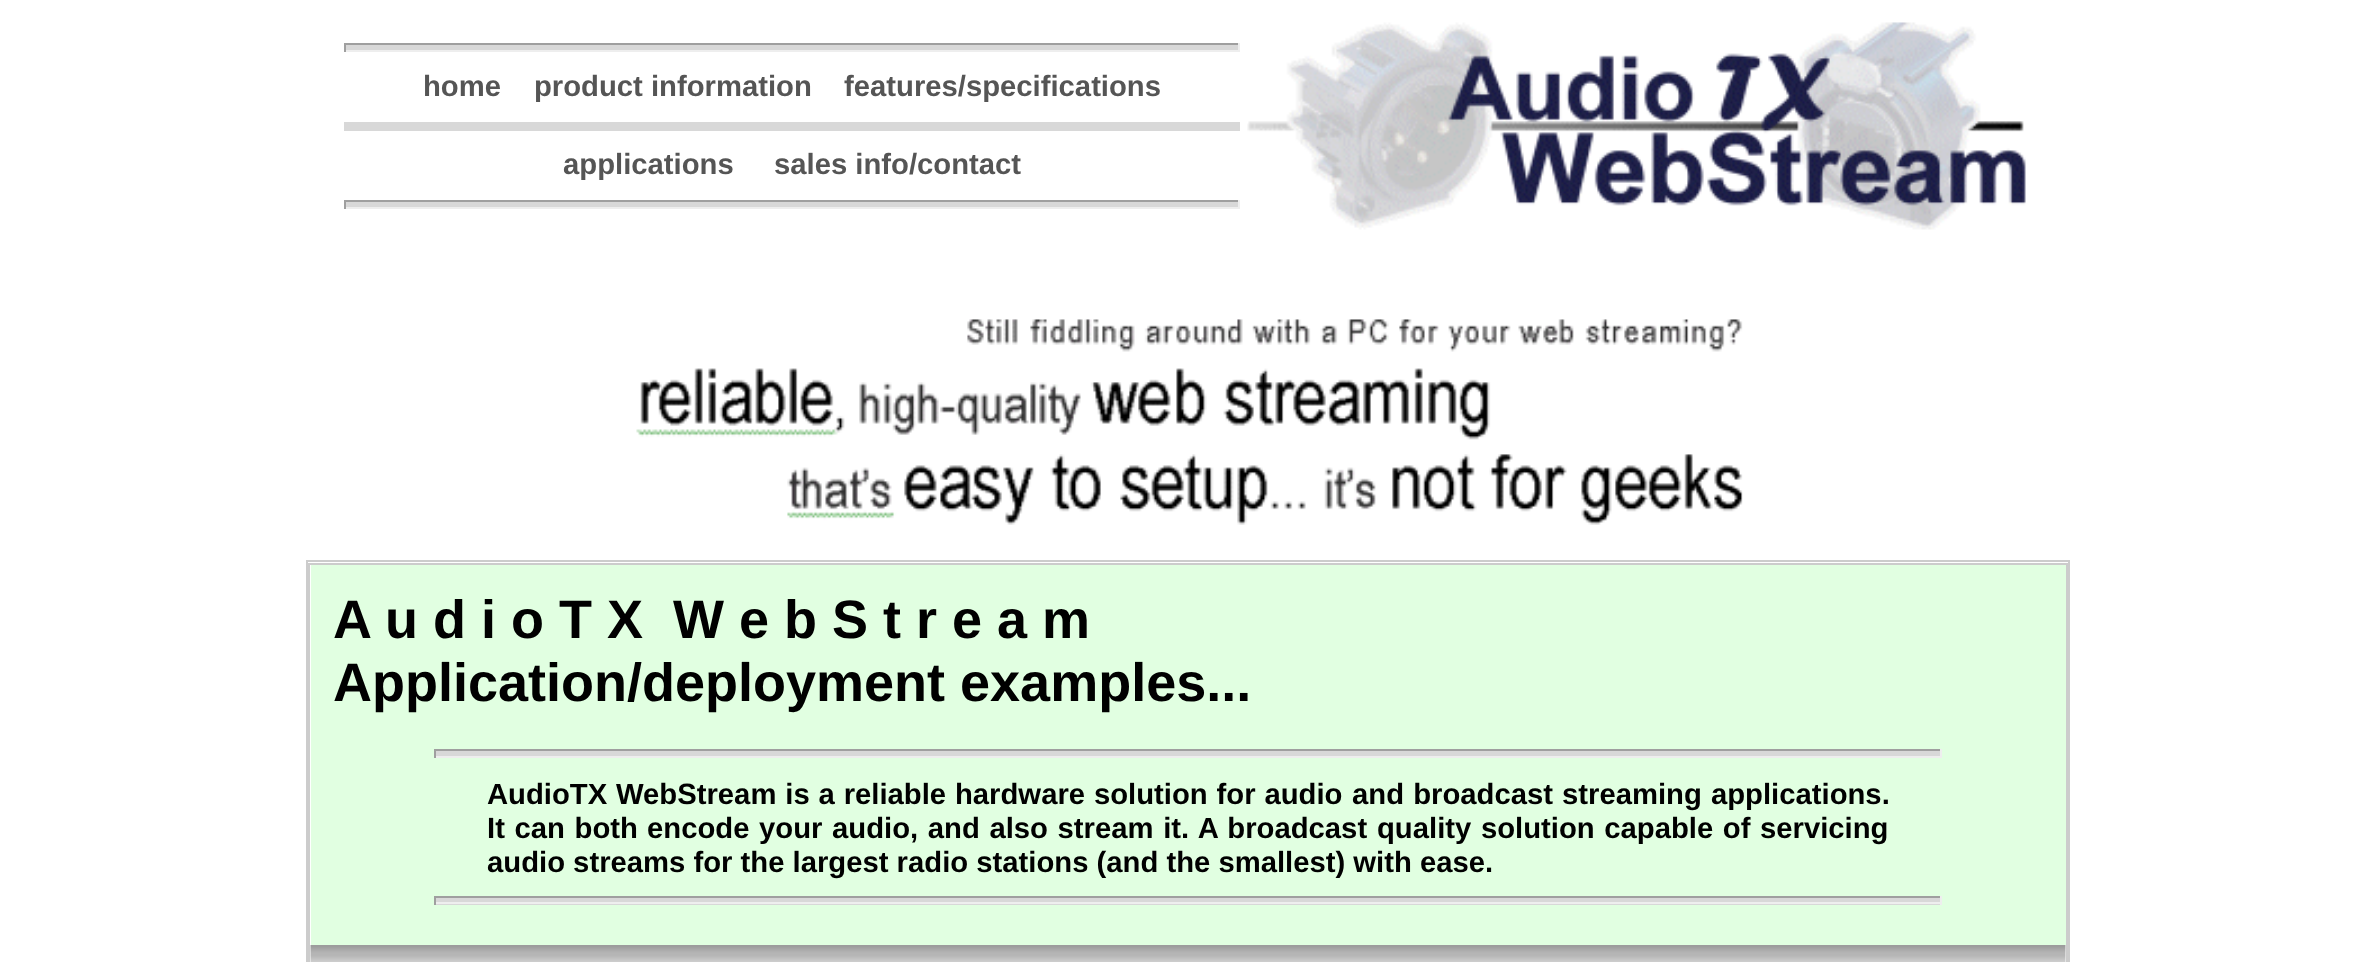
async function draw(canvas) {
	canvas.width = 2376;
	canvas.height = 962;
	const c = canvas.getContext('2d');
	c.miterLimit = 4;
	c.fontKerning = 'normal';
	async function loadImage(src) {
		const img = new Image();
		img.src = src;
		await img.decode();
		return img;
	}

	c.fillStyle = '#fff';
	c.fillRect(0, 0, 2376, 962);
	for (const [x, y, w, h, color] of [
		[346, 45, 892, 5, '#d8d8d8'],
		[344, 43, 896, 2, '#9f9f9f'],
		[1238, 43, 2, 9, '#eee'],
		[344, 50, 896, 2, '#eee'],
		[344, 43, 2, 9, '#9f9f9f'],
	]) {
		c.fillStyle = color;
		c.fillRect(x, y, w, h);
	}
	c.font = 'bold 29.25px Liberation Sans';
	c.fillStyle = '#555';
	for (const [text, x, y] of [
		['home', 423, 96],
		['product information', 534, 96],
		['features/specifications', 844, 96],
	]) {
		c.fillText(text, x, y);
	}
	c.fillStyle = '#d8d8d8';
	c.fillRect(344, 122, 896, 9);
	c.fillStyle = '#555';
	c.fillText('applications', 563, 174);
	c.fillText('sales info/contact', 774, 174);
	for (const [x, y, w, h, color] of [
		[346, 202, 892, 5, '#d8d8d8'],
		[344, 200, 896, 2, '#9f9f9f'],
		[1238, 200, 2, 9, '#eee'],
		[344, 207, 896, 2, '#eee'],
		[344, 200, 2, 9, '#9f9f9f'],
	]) {
		c.fillStyle = color;
		c.fillRect(x, y, w, h);
	}
	c.drawImage(await loadImage('img1.png'), 1247, 22, 779, 208);
	c.drawImage(await loadImage('img2.png'), 636, 319, 1107, 206);
	c.strokeStyle = '#ccc';
	c.lineWidth = 2;
	c.strokeRect(307, 561, 1762, 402);
	c.strokeRect(309, 564, 1758, 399);
	c.fillStyle = '#e1ffe1';
	c.fillRect(311, 565, 1755, 380);
	c.font = 'bold 54px Liberation Sans';
	c.fillStyle = '#000';
	c.fillText('A u d i o T X  W e b S t r e a m', 333, 638);
	c.fillText('Application/deployment examples...', 333, 701);
	for (const [x, y, w, h, color] of [
		[436, 751, 1504, 5, '#d8d8d8'],
		[434, 749, 1508, 2, '#9f9f9f'],
		[1940, 749, 2, 9, '#eee'],
		[434, 756, 1508, 2, '#eee'],
		[434, 749, 2, 9, '#9f9f9f'],
	]) {
		c.fillStyle = color;
		c.fillRect(x, y, w, h);
	}
	c.font = 'bold 29.25px Liberation Sans';
	c.fillStyle = '#000';
	c.fillText('AudioTX', 487, 804);
	c.wordSpacing = '0.75px';
	c.fillText('WebStream is a reliable hardware solution for audio', 616, 804);
	c.wordSpacing = '1px';
	c.fillText('and broadcast streaming applications.', 1352, 804);
	c.wordSpacing = '1.5px';
	for (const [text, x, y] of [
		['It can both', 487, 838],
		['encode your audio, and also stream it. A broadcast', 647, 838],
		['quality solution capable of servicing', 1377, 838],
	]) {
		c.fillText(text, x, y);
	}
	c.wordSpacing = '0px';
	c.fillText('audio streams for the largest radio stations (and the smallest) with ease.', 487, 872);
	for (const [x, y, w, h, color] of [
		[436, 898, 1504, 7, '#d8d8d8'],
		[434, 896, 1508, 2, '#9f9f9f'],
		[1940, 896, 2, 9, '#eee'],
		[434, 902, 1508, 2, '#eee'],
		[434, 896, 2, 9, '#9f9f9f'],
	]) {
		c.fillStyle = color;
		c.fillRect(x, y, w, h);
	}
	c.drawImage(await loadImage('img3.png'), 310, 945, 1756, 17);
}

draw(document.querySelector('canvas'));
